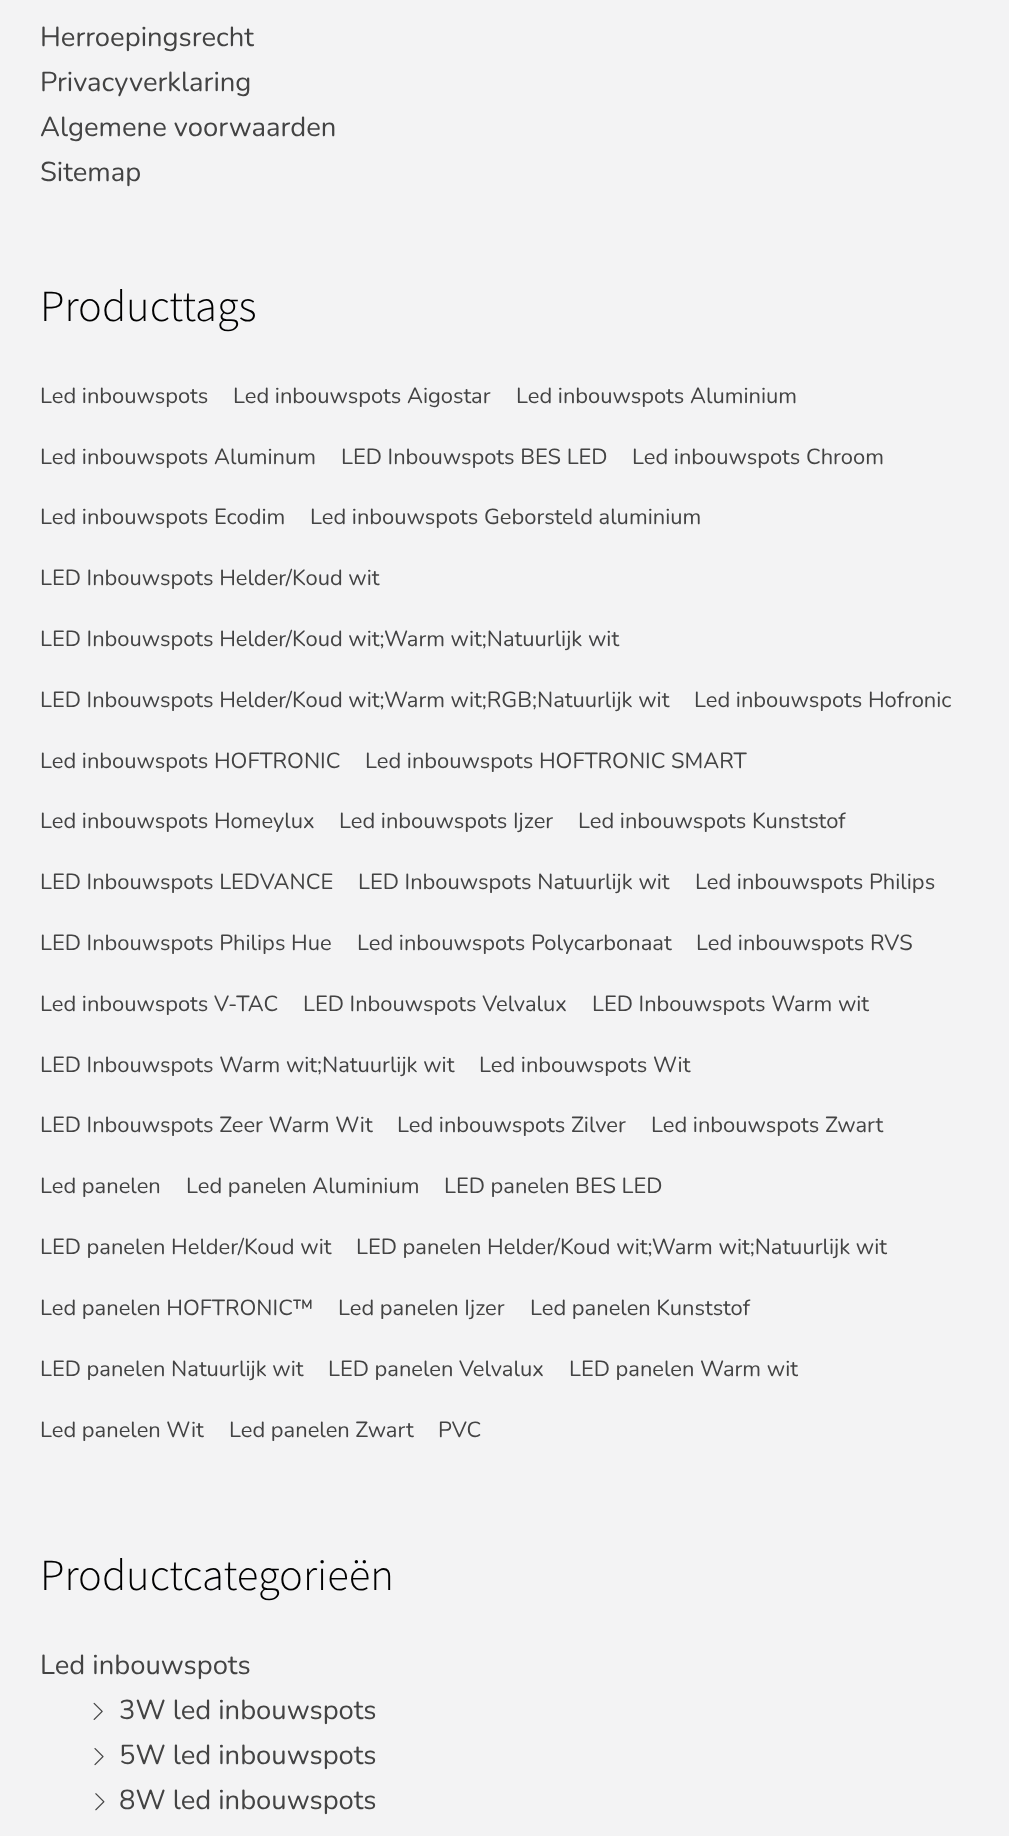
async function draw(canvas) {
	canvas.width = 1009;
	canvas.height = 1836;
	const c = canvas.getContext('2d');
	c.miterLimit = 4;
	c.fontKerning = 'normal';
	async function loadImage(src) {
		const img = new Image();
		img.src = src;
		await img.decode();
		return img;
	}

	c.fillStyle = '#f3f3f4';
	c.fillRect(0, 0, 1009, 1836);
	c.font = '200 27.4px Nunito';
	c.fillStyle = '#434343';
	for (const [text, x, y] of [
		['Herroepingsrecht', 40, 46],
		['Privacyverklaring', 40, 91],
		['Algemene voorwaarden', 40, 136],
		['Sitemap', 40, 181],
	]) {
		c.fillText(text, x, y);
	}
	c.font = '300 44.5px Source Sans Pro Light';
	c.fillStyle = '#000';
	c.fillText('Producttags', 40, 321);
	c.font = '200 21.9px Nunito';
	c.fillStyle = '#434343';
	for (const [text, x, y] of [
		['Led inbouwspots', 40, 403],
		['Led inbouwspots Aigostar', 233, 403],
		['Led inbouwspots Aluminium', 516, 403],
		['Led inbouwspots Aluminum', 40, 464],
		['LED Inbouwspots BES LED', 341, 464],
		['Led inbouwspots Chroom', 632, 464],
		['Led inbouwspots Ecodim', 40, 524],
		['Led inbouwspots Geborsteld aluminium', 310, 524],
		['LED Inbouwspots Helder/Koud wit', 40, 585],
		['LED Inbouwspots Helder/Koud wit;Warm wit;Natuurlijk wit', 40, 646],
		['LED Inbouwspots Helder/Koud wit;Warm wit;RGB;Natuurlijk wit', 40, 707],
		['Led inbouwspots Hofronic', 694, 707],
		['Led inbouwspots HOFTRONIC', 40, 768],
		['Led inbouwspots HOFTRONIC SMART', 365, 768],
		['Led inbouwspots Homeylux', 40, 828],
		['Led inbouwspots Ijzer', 339, 828],
		['Led inbouwspots Kunststof', 578, 828],
		['LED Inbouwspots LEDVANCE', 40, 889],
		['LED Inbouwspots Natuurlijk wit', 358, 889],
		['Led inbouwspots Philips', 695, 889],
		['LED Inbouwspots Philips Hue', 40, 950],
		['Led inbouwspots Polycarbonaat', 357, 950],
		['Led inbouwspots RVS', 696, 950],
		['Led inbouwspots V-TAC', 40, 1011],
		['LED Inbouwspots Velvalux', 303, 1011],
		['LED Inbouwspots Warm wit', 592, 1011],
		['LED Inbouwspots Warm wit;Natuurlijk wit', 40, 1072],
		['Led inbouwspots Wit', 479, 1072],
		['LED Inbouwspots Zeer Warm Wit', 40, 1132],
		['Led inbouwspots Zilver', 397, 1132],
		['Led inbouwspots Zwart', 651, 1132],
		['Led panelen', 40, 1193],
		['Led panelen Aluminium', 186, 1193],
		['LED panelen BES LED', 444, 1193],
		['LED panelen Helder/Koud wit', 40, 1254],
		['LED panelen Helder/Koud wit;Warm wit;Natuurlijk wit', 356, 1254],
		['Led panelen HOFTRONIC™', 40, 1315],
		['Led panelen Ijzer', 338, 1315],
		['Led panelen Kunststof', 530, 1315],
		['LED panelen Natuurlijk wit', 40, 1376],
		['LED panelen Velvalux', 328, 1376],
		['LED panelen Warm wit', 569, 1376],
		['Led panelen Wit', 40, 1437],
		['Led panelen Zwart', 229, 1437],
		['PVC', 438, 1437],
	]) {
		c.fillText(text, x, y);
	}
	c.font = '300 44.5px Source Sans Pro Light';
	c.fillStyle = '#000';
	c.fillText('Productcategorieën', 40, 1590);
	c.font = '200 27.4px Nunito';
	c.fillStyle = '#434343';
	c.fillText('Led inbouwspots', 40, 1674);
	c.drawImage(await loadImage('img1.png'), 93, 1702, 10, 18);
	c.fillText('3W led inbouwspots', 119, 1719);
	c.drawImage(await loadImage('img2.png'), 94, 1748, 10, 18);
	c.fillText('5W led inbouwspots', 119, 1764);
	c.drawImage(await loadImage('img3.png'), 95, 1793, 10, 18);
	c.fillText('8W led inbouwspots', 119, 1809);
}

draw(document.querySelector('canvas'));
